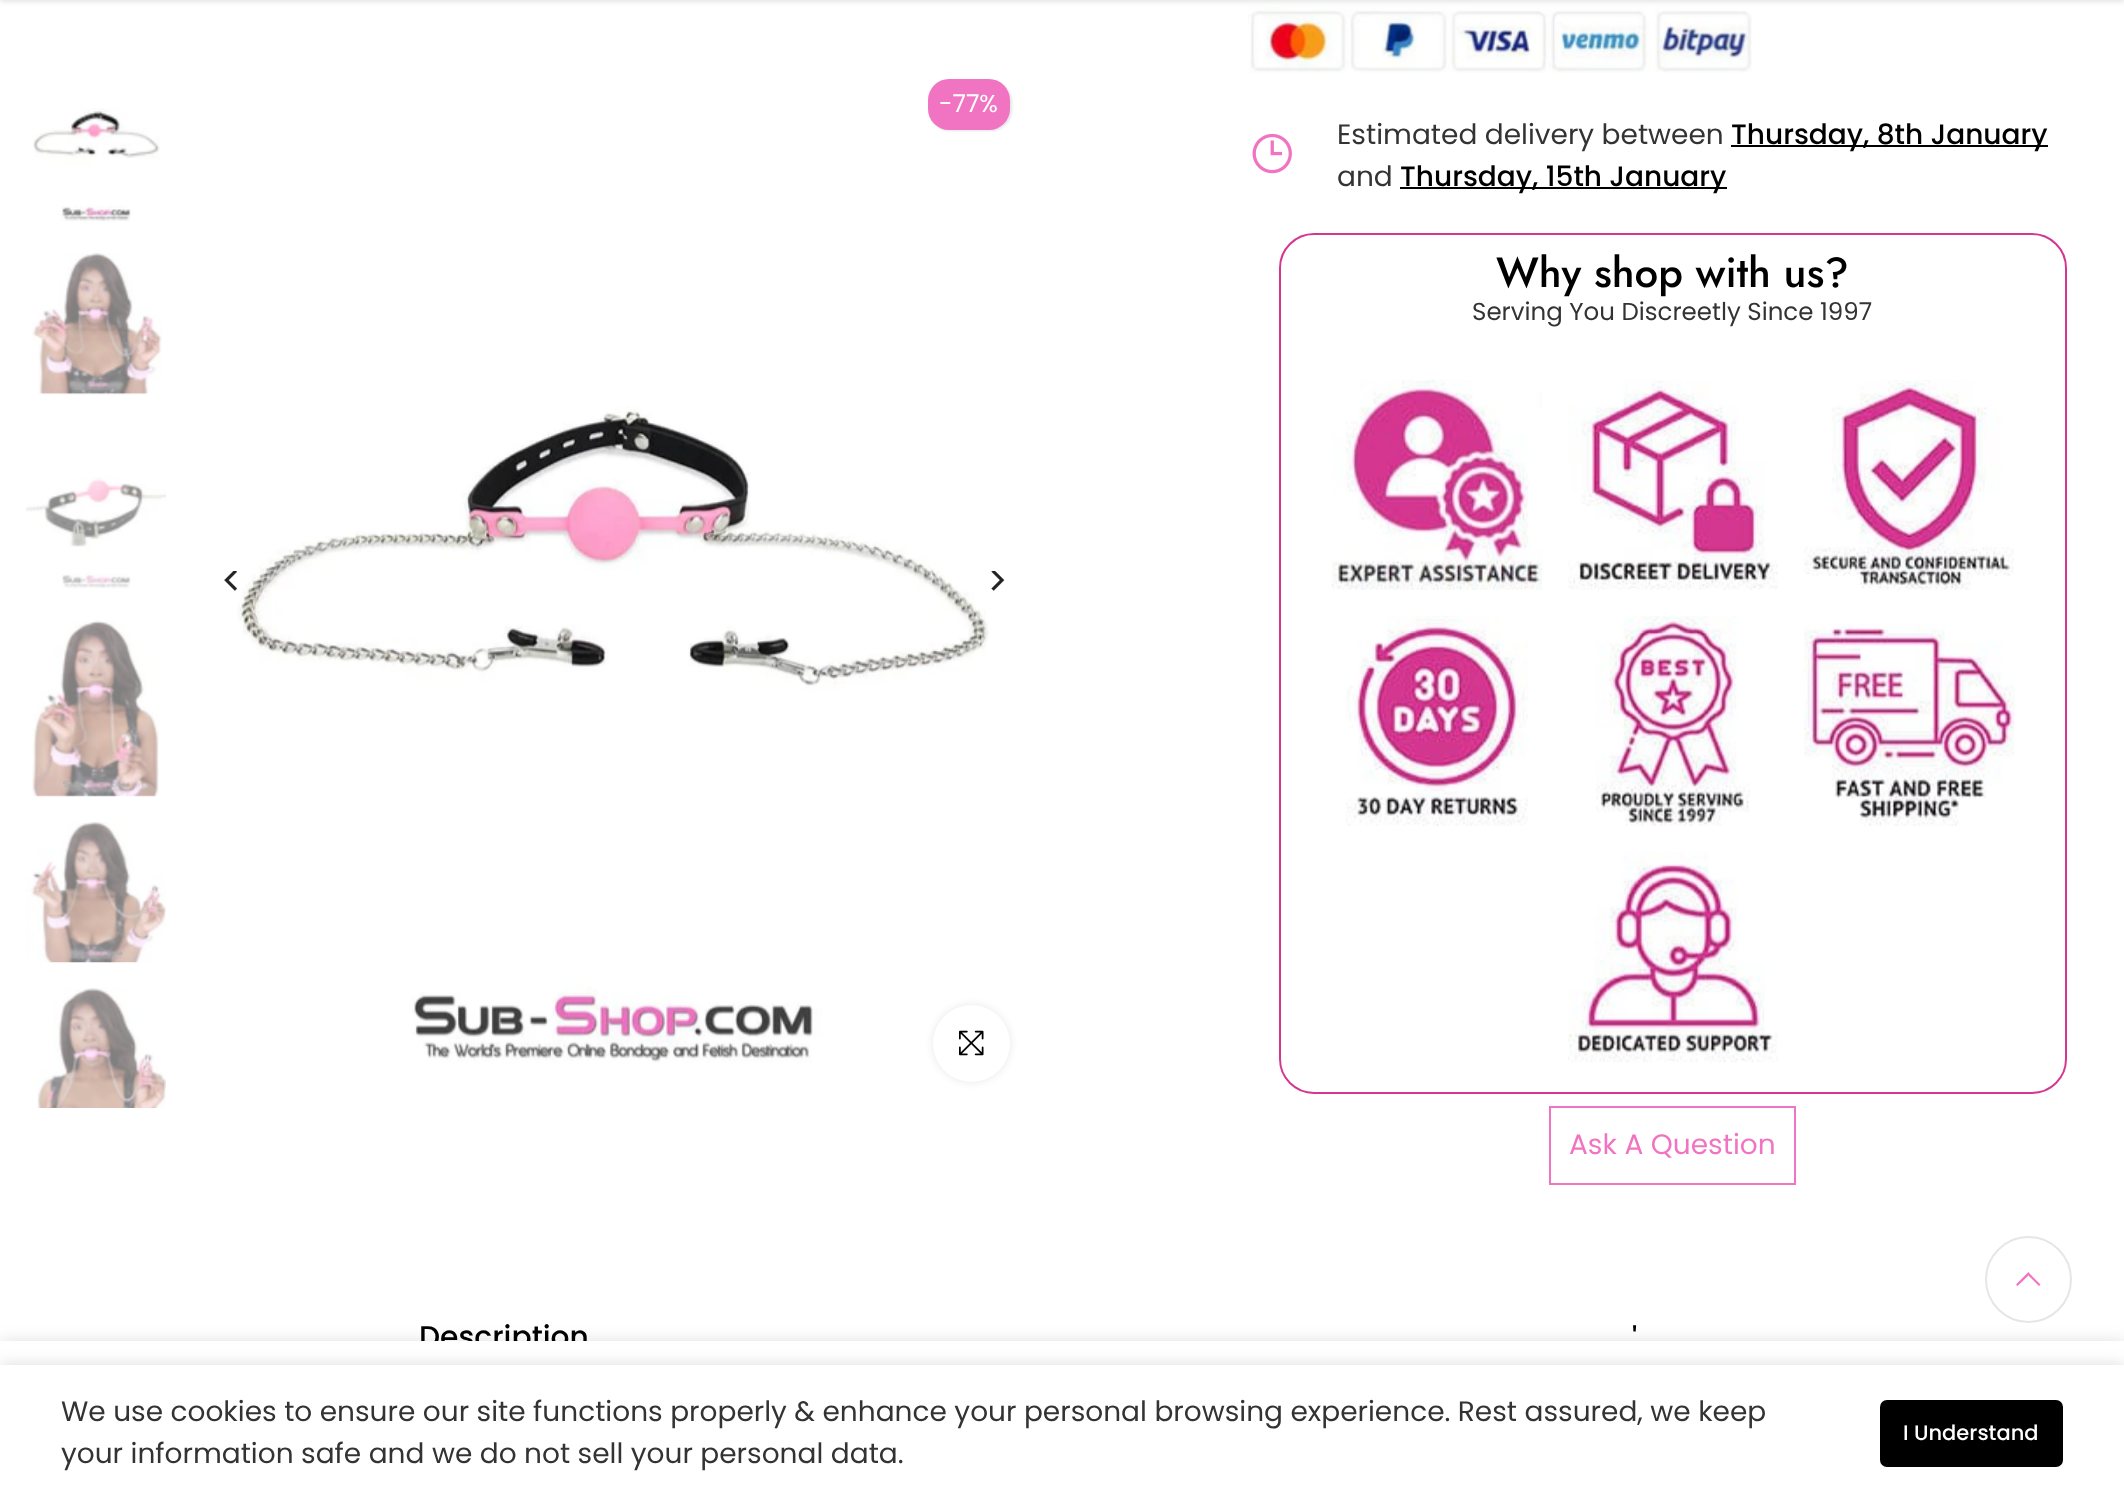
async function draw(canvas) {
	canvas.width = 2124;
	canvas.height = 1501;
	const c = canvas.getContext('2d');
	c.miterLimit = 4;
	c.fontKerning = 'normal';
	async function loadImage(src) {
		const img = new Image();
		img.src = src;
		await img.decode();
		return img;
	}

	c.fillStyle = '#fff';
	c.fillRect(0, 0, 2124, 1501);
	c.drawImage(await loadImage('img11.png'), 1248, 7, 504, 66);
	c.fillStyle = '#0000001a';
	c.filter = 'blur(2.5px)';
	c.beginPath();
	c.rect(0, -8, 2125, 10);
	c.fill();
	c.filter = 'none';
	c.filter = 'blur(1px)';
	c.beginPath();
	c.roundRect(929, 81, 83, 50, 21);
	c.fill();
	c.filter = 'none';
	c.fillStyle = '#f174c3';
	c.beginPath();
	c.roundRect(928, 79, 82, 51, 21);
	c.fill();
	c.font = '24.5px Poppins';
	c.fillStyle = '#fff';
	c.fillText('-77%', 939, 112);
	c.drawImage(await loadImage('img1.png'), 224, 571, 13, 20);
	c.drawImage(await loadImage('img2.png'), 237, 406, 752, 657);
	c.drawImage(await loadImage('img3.png'), 991, 571, 14, 20);
	c.fillStyle = '#00000017';
	c.filter = 'blur(4.5px)';
	c.beginPath();
	c.roundRect(933, 1005, 77, 77, 38.5);
	c.fill();
	c.filter = 'none';
	c.fillStyle = '#fff';
	c.beginPath();
	c.arc(971.5, 1043.5, 38.5, 0, 2 * Math.PI);
	c.fill();
	c.drawImage(await loadImage('img4.png'), 959, 1030, 25, 26);
	c.drawImage(await loadImage('img5.png'), 33, 108, 127, 114);
	c.drawImage(await loadImage('img6.png'), 32, 253, 130, 142);
	c.drawImage(await loadImage('img7.png'), 26, 477, 140, 112);
	c.drawImage(await loadImage('img8.png'), 32, 620, 127, 177);
	c.drawImage(await loadImage('img9.png'), 26, 822, 140, 141);
	c.drawImage(await loadImage('img10.png'), 37, 988, 129, 120);
	c.drawImage(await loadImage('img12.png'), 1252, 133, 40, 41);
	c.font = '28px Poppins';
	c.fillStyle = '#333';
	c.fillText('Estimated delivery between', 1337, 144);
	c.fillStyle = '#000';
	c.fillRect(1731, 145, 317, 2);
	c.font = '500 28px Poppins';
	c.fillText('Thursday, 8th January', 1731, 144);
	c.font = '28px Poppins';
	c.fillStyle = '#333';
	c.fillText('and', 1337, 186);
	c.fillStyle = '#000';
	c.fillRect(1400, 187, 327, 2);
	c.font = '500 28px Poppins';
	c.fillText('Thursday, 15th January', 1400, 186);
	c.beginPath();
	c.roundRect(1280, 234, 786, 859, 34);
	c.strokeStyle = '#d33790';
	c.lineWidth = 2;
	c.stroke();
	c.font = '500 42px Jost';
	c.fillText('Why shop with us?', 1496, 287);
	c.font = '24.5px Poppins';
	c.fillStyle = '#333';
	c.fillText('Serving You Discreetly Since 1997', 1472, 320);
	c.drawImage(await loadImage('img13.png'), 1331, 379, 211, 211);
	c.drawImage(await loadImage('img14.png'), 1568, 380, 210, 210);
	c.drawImage(await loadImage('img15.png'), 1804, 380, 210, 210);
	c.drawImage(await loadImage('img16.png'), 1346, 616, 182, 210);
	c.drawImage(await loadImage('img17.png'), 1596, 616, 154, 210);
	c.drawImage(await loadImage('img18.png'), 1804, 624, 211, 202);
	c.drawImage(await loadImage('img19.png'), 1568, 852, 210, 211);
	c.strokeStyle = '#f174c3';
	c.strokeRect(1550, 1107, 245, 77);
	c.font = '28px Poppins';
	c.fillStyle = '#f174c3';
	c.fillText('Ask A Question', 1569, 1154);
	c.font = '500 29.75px Poppins';
	c.fillStyle = '#000';
	c.fillText('Description', 419, 1347);
	c.fillText('\'', 1632, 1349);
	c.fillStyle = '#0000001f';
	c.filter = 'blur(8px)';
	c.beginPath();
	c.rect(0, 1341, 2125, 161);
	c.fill();
	c.filter = 'none';
	c.beginPath();
	c.arc(2028.5, 1279.5, 42.5, 0, 2 * Math.PI);
	c.strokeStyle = '#e6e6e6';
	c.stroke();
	c.fillStyle = '#f174c3';
	c.beginPath();
	c.moveTo(2030, 1274);
	c.lineTo(2028.5, 1272);
	c.lineTo(2016, 1284.5);
	c.lineTo(2017.5, 1286);
	c.lineTo(2028.5, 1275.5);
	c.lineTo(2039, 1286);
	c.lineTo(2040.5, 1284.5);
	c.lineTo(2034.5, 1278.5);
	c.closePath();
	c.fill();
	c.fillStyle = '#fff';
	c.fillRect(0, 1341, 2124, 24);
	c.fillStyle = '#00000024';
	c.filter = 'blur(8px)';
	c.beginPath();
	c.rect(0, 1365, 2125, 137);
	c.fill();
	c.filter = 'none';
	c.fillStyle = '#fff';
	c.fillRect(0, 1365, 2124, 136);
	c.font = '28px Poppins';
	c.fillStyle = '#333';
	c.fillText('We use cookies to ensure our site functions properly & enhance your personal browsing experience. Rest assured, we keep', 61, 1421);
	c.fillText('your information safe and we do not sell your personal data.', 61, 1463);
	c.fillStyle = '#000';
	c.beginPath();
	c.roundRect(1880, 1400, 183, 67, 7);
	c.fill();
	c.font = '500 21px Poppins';
	c.fillStyle = '#fff';
	c.fillText('I Understand', 1903, 1440);
}

draw(document.querySelector('canvas'));
